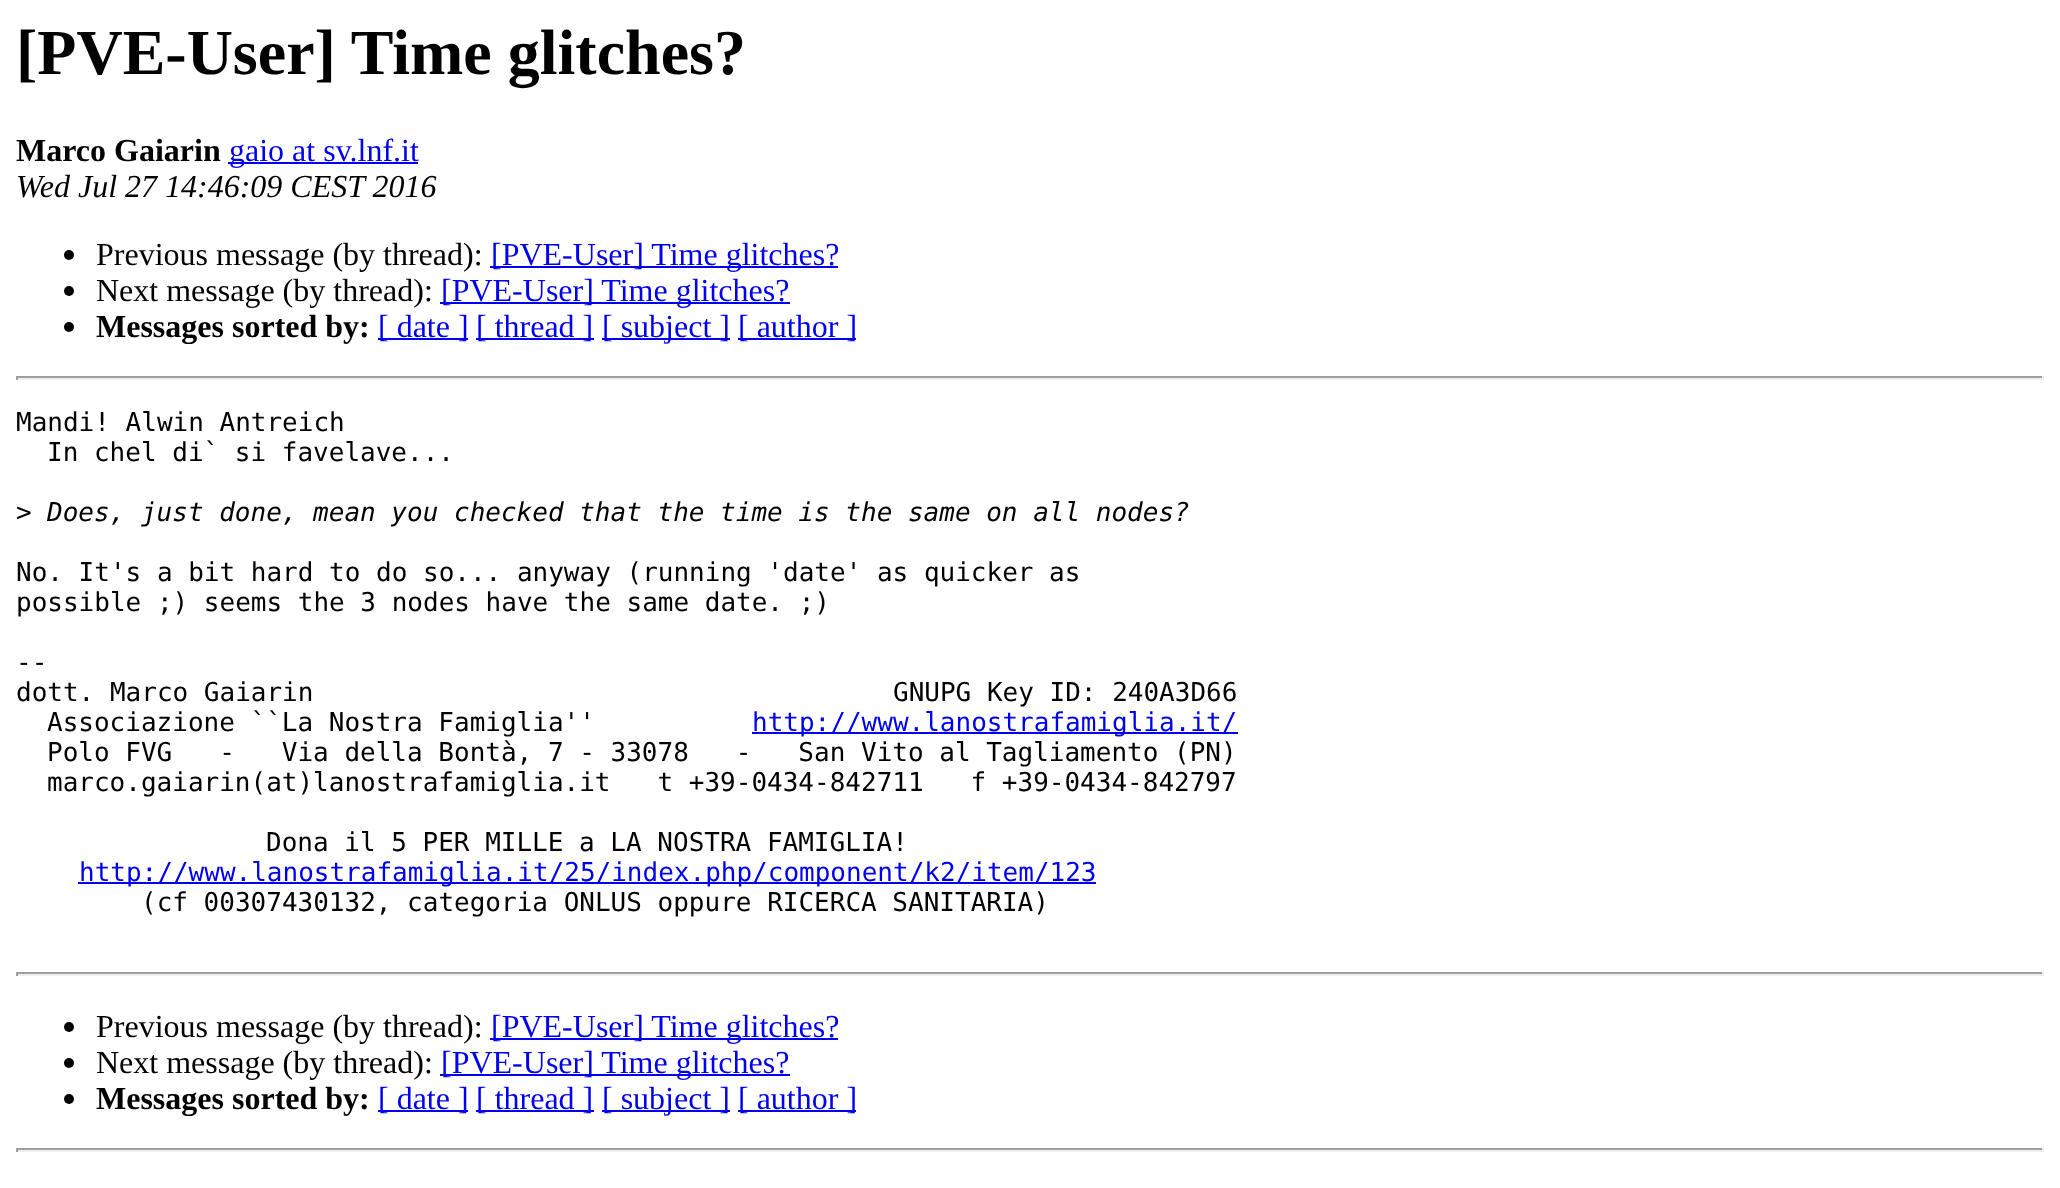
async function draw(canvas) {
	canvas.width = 2060;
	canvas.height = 1188;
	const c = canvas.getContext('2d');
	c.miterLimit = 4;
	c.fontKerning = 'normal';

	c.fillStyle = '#fff';
	c.fillRect(0, 0, 2060, 1188);
	c.font = 'bold 64px Liberation Serif';
	c.fillStyle = '#000';
	c.fillText('[PVE-User] Time glitches?', 16, 74);
	c.font = 'bold 32px Liberation Serif';
	c.fillText('Marco Gaiarin', 16, 161);
	c.fillStyle = '#00e';
	c.fillRect(228, 162, 190, 2);
	c.font = '32px Liberation Serif';
	c.fillText('gaio at sv.lnf.it', 229, 161);
	c.font = 'italic 32px Liberation Serif';
	c.fillStyle = '#000';
	c.fillText('Wed Jul 27 14:46:09 CEST 2016', 16, 197);
	c.beginPath();
	c.arc(69, 255, 5, 0, 2 * Math.PI);
	c.fill();
	c.font = '32px Liberation Serif';
	c.fillText('Previous message (by thread):', 96, 265);
	c.fillStyle = '#00e';
	c.fillRect(490, 266, 348, 2);
	c.fillText('[PVE-User] Time glitches?', 491, 265);
	c.fillStyle = '#000';
	c.beginPath();
	c.arc(69, 291, 5, 0, 2 * Math.PI);
	c.fill();
	c.fillText('Next message (by thread):', 96, 301);
	c.fillStyle = '#00e';
	c.fillRect(440, 302, 350, 2);
	c.fillText('[PVE-User] Time glitches?', 441, 301);
	c.fillStyle = '#000';
	c.beginPath();
	c.arc(69, 327, 5, 0, 2 * Math.PI);
	c.fill();
	c.font = 'bold 32px Liberation Serif';
	c.fillText('Messages sorted by:', 96, 337);
	c.fillStyle = '#00e';
	c.fillRect(378, 338, 90, 2);
	c.font = '32px Liberation Serif';
	c.fillText('[ date ]', 378, 337);
	c.fillRect(476, 338, 118, 2);
	c.fillText('[ thread ]', 476, 337);
	c.fillRect(602, 338, 128, 2);
	c.fillText('[ subject ]', 602, 337);
	c.fillRect(738, 338, 118, 2);
	c.fillText('[ author ]', 738, 337);
	for (const [x, y, w, h, color] of [
		[16, 376, 2028, 2, '#9f9f9f'],
		[2042, 376, 2, 4, '#eee'],
		[16, 378, 2028, 2, '#eee'],
		[16, 376, 2, 4, '#9f9f9f'],
	]) {
		c.fillStyle = color;
		c.fillRect(x, y, w, h);
	}
	c.font = '26px DejaVu Sans Mono';
	c.fillStyle = '#000';
	for (const [text, x, y] of [
		['Mandi! Alwin Antreich', 16, 431],
		['In chel di` si favelave...', 47, 461],
		['>', 16, 521],
	]) {
		c.fillText(text, x, y);
	}
	c.font = 'italic 26px DejaVu Sans Mono';
	c.fillText('Does, just done, mean you checked that the time is the same on all nodes?', 47, 521);
	c.font = '26px DejaVu Sans Mono';
	for (const [text, x, y] of [
		['No. It\'s a bit hard to do so... anyway (running \'date\' as quicker as', 16, 581],
		['possible ;) seems the 3 nodes have the same date. ;)', 16, 611],
		['--', 16, 671],
		['dott. Marco Gaiarin', 16, 701],
		['GNUPG Key ID: 240A3D66', 893, 701],
		['Associazione ``La Nostra Famiglia\'\'', 47, 731],
	]) {
		c.fillText(text, x, y);
	}
	c.fillStyle = '#00e';
	c.fillRect(752, 732, 486, 2);
	c.fillText('http://www.lanostrafamiglia.it/', 752, 731);
	c.fillStyle = '#000';
	for (const [text, x, y] of [
		['Polo FVG   -   Via della Bontà, 7 - 33078   -   San Vito al Tagliamento (PN)', 47, 761],
		['marco.gaiarin(at)lanostrafamiglia.it   t +39-0434-842711   f +39-0434-842797', 47, 791],
		['Dona il 5 PER MILLE a LA NOSTRA FAMIGLIA!', 266, 851],
	]) {
		c.fillText(text, x, y);
	}
	c.fillStyle = '#00e';
	c.fillRect(78, 882, 1018, 2);
	c.fillText('http://www.lanostrafamiglia.it/25/index.php/component/k2/item/123', 79, 881);
	c.fillStyle = '#000';
	c.fillText('(cf 00307430132, categoria ONLUS oppure RICERCA SANITARIA)', 141, 911);
	for (const [x, y, w, h, color] of [
		[16, 972, 2028, 2, '#9f9f9f'],
		[2042, 972, 2, 4, '#eee'],
		[16, 974, 2028, 2, '#eee'],
		[16, 972, 2, 4, '#9f9f9f'],
	]) {
		c.fillStyle = color;
		c.fillRect(x, y, w, h);
	}
	c.fillStyle = '#000';
	c.beginPath();
	c.arc(69, 1027, 5, 0, 2 * Math.PI);
	c.fill();
	c.font = '32px Liberation Serif';
	c.fillText('Previous message (by thread):', 96, 1037);
	c.fillStyle = '#00e';
	c.fillRect(490, 1038, 348, 2);
	c.fillText('[PVE-User] Time glitches?', 491, 1037);
	c.fillStyle = '#000';
	c.beginPath();
	c.arc(69, 1063, 5, 0, 2 * Math.PI);
	c.fill();
	c.fillText('Next message (by thread):', 96, 1073);
	c.fillStyle = '#00e';
	c.fillRect(440, 1074, 350, 2);
	c.fillText('[PVE-User] Time glitches?', 441, 1073);
	c.fillStyle = '#000';
	c.beginPath();
	c.arc(69, 1099, 5, 0, 2 * Math.PI);
	c.fill();
	c.font = 'bold 32px Liberation Serif';
	c.fillText('Messages sorted by:', 96, 1109);
	c.fillStyle = '#00e';
	c.fillRect(378, 1110, 90, 2);
	c.font = '32px Liberation Serif';
	c.fillText('[ date ]', 378, 1109);
	c.fillRect(476, 1110, 118, 2);
	c.fillText('[ thread ]', 476, 1109);
	c.fillRect(602, 1110, 128, 2);
	c.fillText('[ subject ]', 602, 1109);
	c.fillRect(738, 1110, 118, 2);
	c.fillText('[ author ]', 738, 1109);
	for (const [x, y, w, h, color] of [
		[16, 1148, 2028, 2, '#9f9f9f'],
		[2042, 1148, 2, 4, '#eee'],
		[16, 1150, 2028, 2, '#eee'],
		[16, 1148, 2, 4, '#9f9f9f'],
	]) {
		c.fillStyle = color;
		c.fillRect(x, y, w, h);
	}
}

draw(document.querySelector('canvas'));
